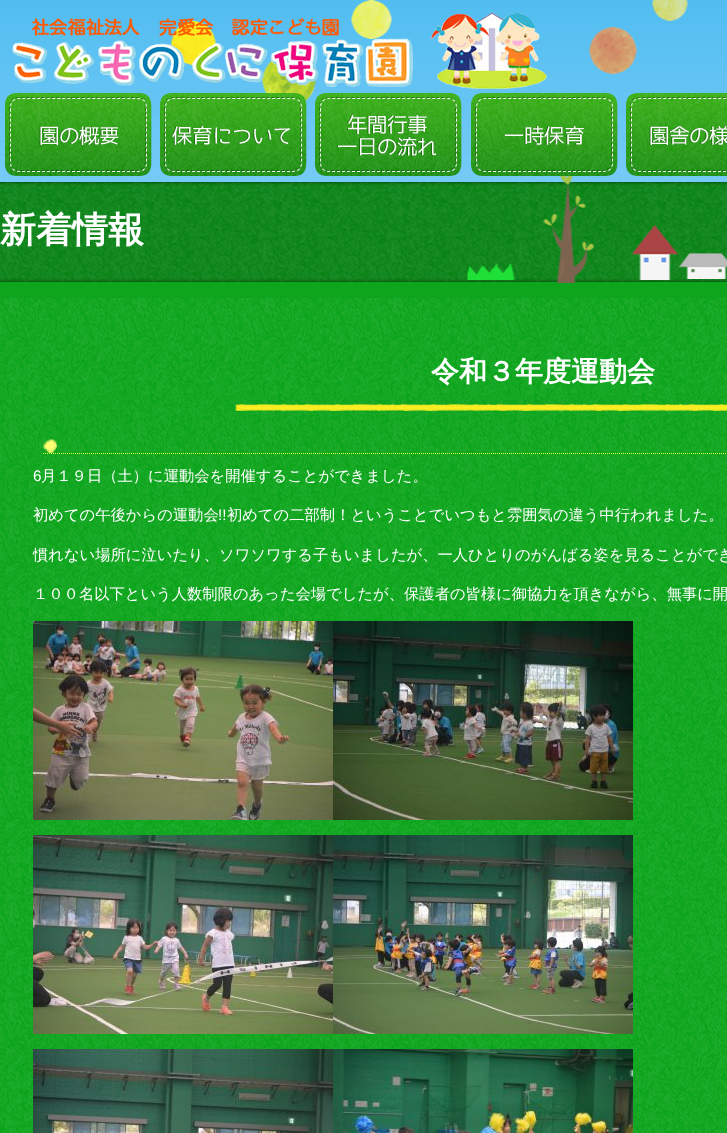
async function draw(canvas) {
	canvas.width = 727;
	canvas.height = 1133;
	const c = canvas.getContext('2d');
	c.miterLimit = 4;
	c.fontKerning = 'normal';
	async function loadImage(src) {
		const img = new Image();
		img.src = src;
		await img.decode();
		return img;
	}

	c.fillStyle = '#fff';
	c.fillRect(0, 0, 727, 1133);
	c.drawImage(await loadImage('img1.png'), 0, 298, 727, 835);
	c.drawImage(await loadImage('img2.png'), 0, 0, 727, 298);
	c.drawImage(await loadImage('img3.png'), 12, 12, 535, 77);
	c.drawImage(await loadImage('img4.png'), 5, 93, 147, 83);
	c.drawImage(await loadImage('img5.png'), 160, 93, 147, 83);
	c.drawImage(await loadImage('img6.png'), 315, 93, 147, 83);
	c.drawImage(await loadImage('img7.png'), 471, 93, 147, 83);
	c.drawImage(await loadImage('img8.png'), 626, 93, 101, 83);
	c.font = 'bold 36px WenQuanYi Zen Hei';
	c.fillText('新着情報', 0, 242);
	c.drawImage(await loadImage('img9.png'), 235, 404, 492, 7);
	c.font = 'bold 28px WenQuanYi Zen Hei';
	c.fillText('令和３年度運動会', 431, 381);
	c.drawImage(await loadImage('img10.png'), 43, 439, 14, 14);
	c.beginPath();
	c.moveTo(43, 453.5);
	c.lineTo(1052, 453.5);
	c.strokeStyle = '#e1ff3d';
	c.setLineDash([1, 1]);
	c.stroke();
	c.font = '15.3px Liberation Sans';
	c.fillText('6', 33, 481);
	c.font = '500 15.3px WenQuanYi Zen Hei';
	c.fillText('月１９日（土）に運動会を開催することができました。', 41, 481);
	c.fillText('初めての午後からの運動会', 33, 520);
	c.font = '15.3px Liberation Sans';
	c.fillText('!!', 218, 520);
	c.font = '500 15.3px WenQuanYi Zen Hei';
	for (const [text, x, y] of [
		['初めての二部制！ということでいつもと雰囲気の違う中行われました。', 227, 520],
		['慣れない場所に泣いたり、ソワソワする子もいましたが、一人ひとりのがんばる姿を見ることができ', 33, 560],
		['１００名以下という人数制限のあった会場でしたが、保護者の皆様に御協力を頂きながら、無事に開', 33, 599],
	]) {
		c.fillText(text, x, y);
	}
	c.drawImage(await loadImage('img11.png'), 33, 621, 300, 199);
	c.drawImage(await loadImage('img12.png'), 333, 621, 300, 199);
	c.drawImage(await loadImage('img13.png'), 33, 835, 300, 199);
	c.drawImage(await loadImage('img14.png'), 333, 835, 300, 199);
	c.drawImage(await loadImage('img15.png'), 33, 1049, 300, 84);
	c.drawImage(await loadImage('img16.png'), 333, 1049, 300, 84);
}

draw(document.querySelector('canvas'));
